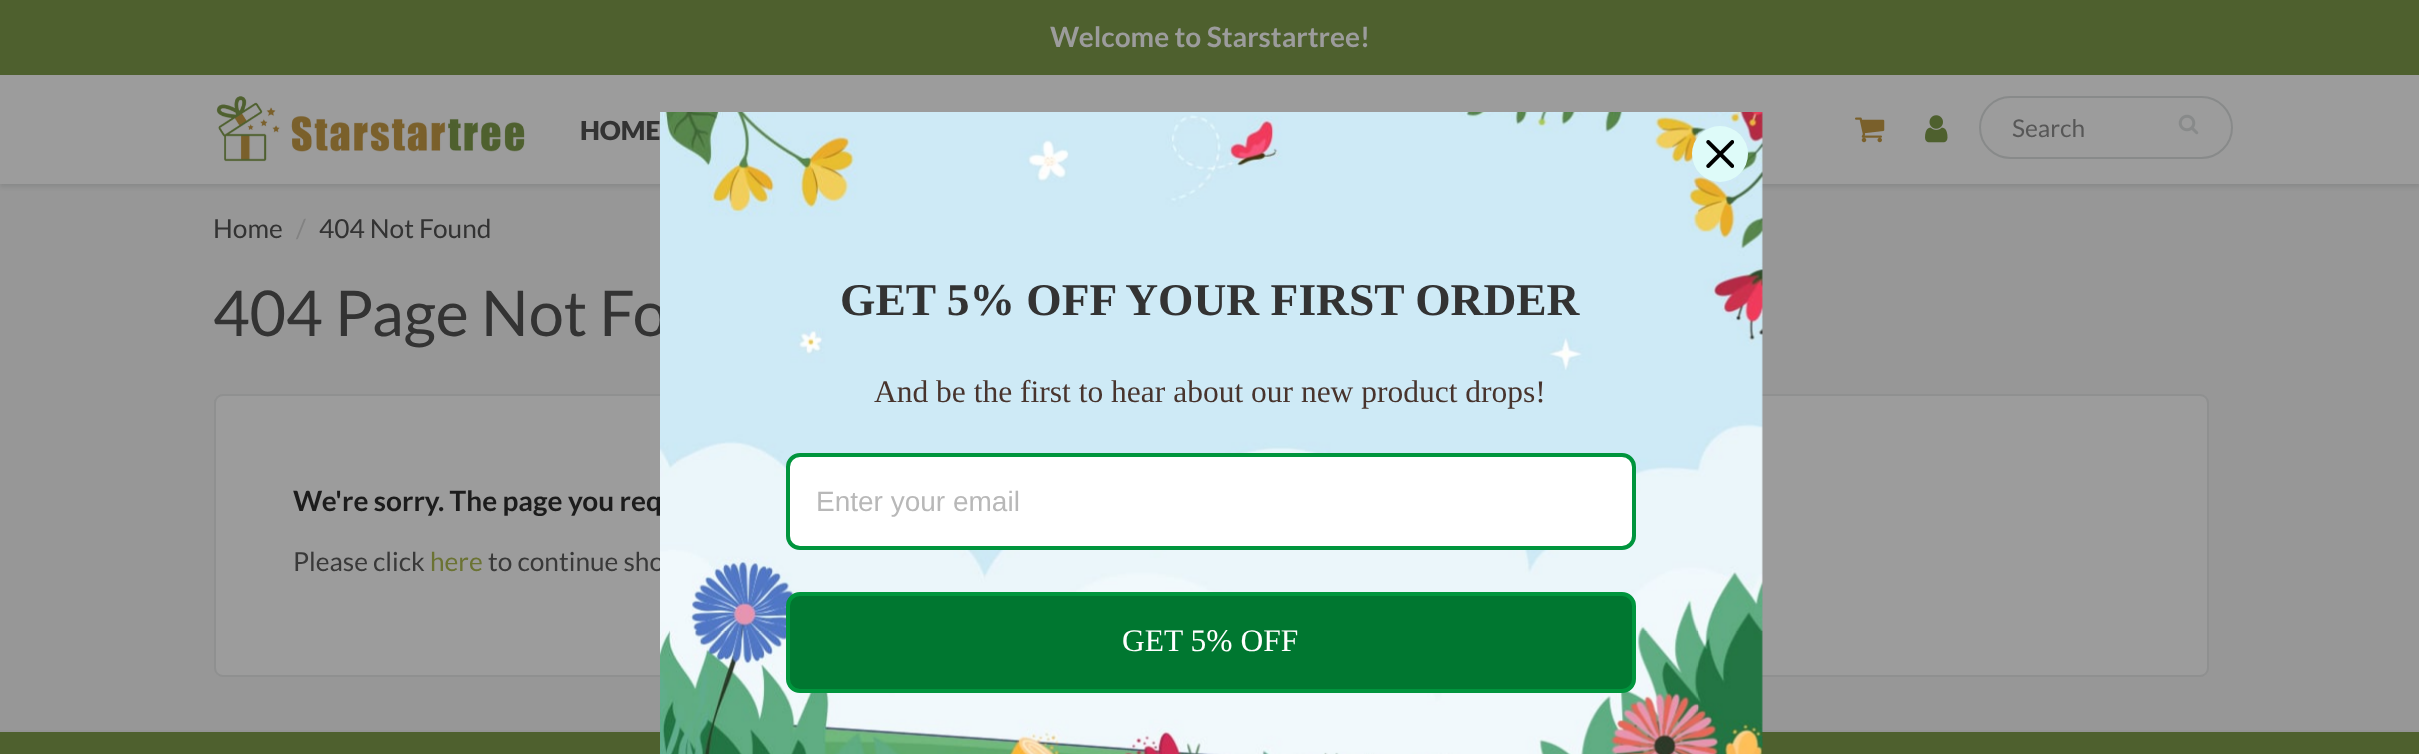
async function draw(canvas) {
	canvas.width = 2419;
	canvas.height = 754;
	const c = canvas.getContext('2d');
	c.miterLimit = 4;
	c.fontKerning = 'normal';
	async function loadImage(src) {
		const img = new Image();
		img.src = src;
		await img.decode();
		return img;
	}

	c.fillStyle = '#4e602e';
	c.fillRect(0, 0, 2419, 754);
	c.font = 'bold 28px Lato';
	c.fillStyle = '#9c9c9c';
	c.fillText('Welcome to Starstartree!', 1050, 47);
	c.fillStyle = '#979797';
	c.fillRect(0, 184, 2419, 546);
	c.fillStyle = '#22292a1f';
	c.filter = 'blur(2px)';
	c.beginPath();
	c.rect(0, 79, 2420, 108);
	c.fill();
	c.filter = 'none';
	c.fillStyle = '#9c9c9c';
	c.fillRect(0, 75, 2419, 109);
	c.drawImage(await loadImage('img1.png'), 216, 96, 309, 66);
	c.font = '900 26.25px Lato';
	c.fillStyle = '#333';
	c.fillText('HOME', 580, 140);
	c.drawImage(await loadImage('img2.png'), 1855, 117, 30, 26);
	c.drawImage(await loadImage('img3.png'), 1925, 115, 23, 28);
	c.beginPath();
	c.roundRect(1980, 97, 252, 61, 30.5);
	c.strokeStyle = '#888a8a';
	c.lineWidth = 2;
	c.stroke();
	c.font = '24.5px Lato';
	c.fillStyle = '#575757';
	c.fillText('Search', 2012, 137);
	c.drawImage(await loadImage('img4.png'), 2178, 114, 21, 21);
	c.font = '26.25px Lato';
	c.fillStyle = '#333';
	c.fillText('Home', 213, 238);
	c.fillStyle = '#828282';
	c.fillText('/', 296, 238);
	c.fillStyle = '#333';
	c.fillText('404 Not Found', 319, 238);
	c.font = '63px Lato';
	c.fillText('404 Page Not Fo', 213, 336);
	c.fillStyle = '#9c9c9c';
	c.beginPath();
	c.roundRect(214, 394, 1995, 283, 9);
	c.fill();
	c.beginPath();
	c.roundRect(215, 395, 1993, 281, 8);
	c.strokeStyle = '#22292a1a';
	c.stroke();
	c.font = 'bold 28px Lato';
	c.fillStyle = '#1c1c1c';
	c.fillText('We\'re sorry. The page you req', 293, 511);
	c.font = '26.25px Lato';
	c.fillStyle = '#393939';
	c.fillText('Please click', 293, 571);
	c.fillStyle = '#6b7333';
	c.fillText('here', 430, 571);
	c.fillStyle = '#393939';
	c.fillText('to continue sho', 488, 571);
	c.fillStyle = '#949494';
	c.fillRect(0, 730, 2419, 2);
	c.drawImage(await loadImage('img6.png'), 660, 112, 1103, 642);
	c.fillStyle = '#defbf9';
	c.beginPath();
	c.arc(1720, 154, 28, 0, 2 * Math.PI);
	c.fill();
	c.drawImage(await loadImage('img5.png'), 1706, 140, 28, 28);
	c.font = 'bold 45.5px Liberation Serif';
	c.fillStyle = '#333';
	c.fillText('GET 5% OFF YOUR FIRST ORDER', 840, 315);
	c.font = '31.5px Liberation Serif';
	c.fillStyle = '#48342d';
	c.fillText('And be the first to hear about our new product drops!', 874, 402);
	c.fillStyle = '#fff';
	c.beginPath();
	c.roundRect(788, 455, 846, 93, 12);
	c.fill();
	c.strokeStyle = '#00953d';
	c.lineWidth = 4;
	c.stroke();
	c.font = '28px Liberation Sans';
	c.fillStyle = '#b8b8b8';
	c.fillText('Enter your email', 816, 511);
	c.fillStyle = '#007730';
	c.beginPath();
	c.roundRect(788, 594, 846, 97, 12);
	c.fill();
	c.stroke();
	c.font = '31.5px Liberation Serif';
	c.fillStyle = '#fff';
	c.fillText('GET 5% OFF', 1122, 651);
}

draw(document.querySelector('canvas'));
